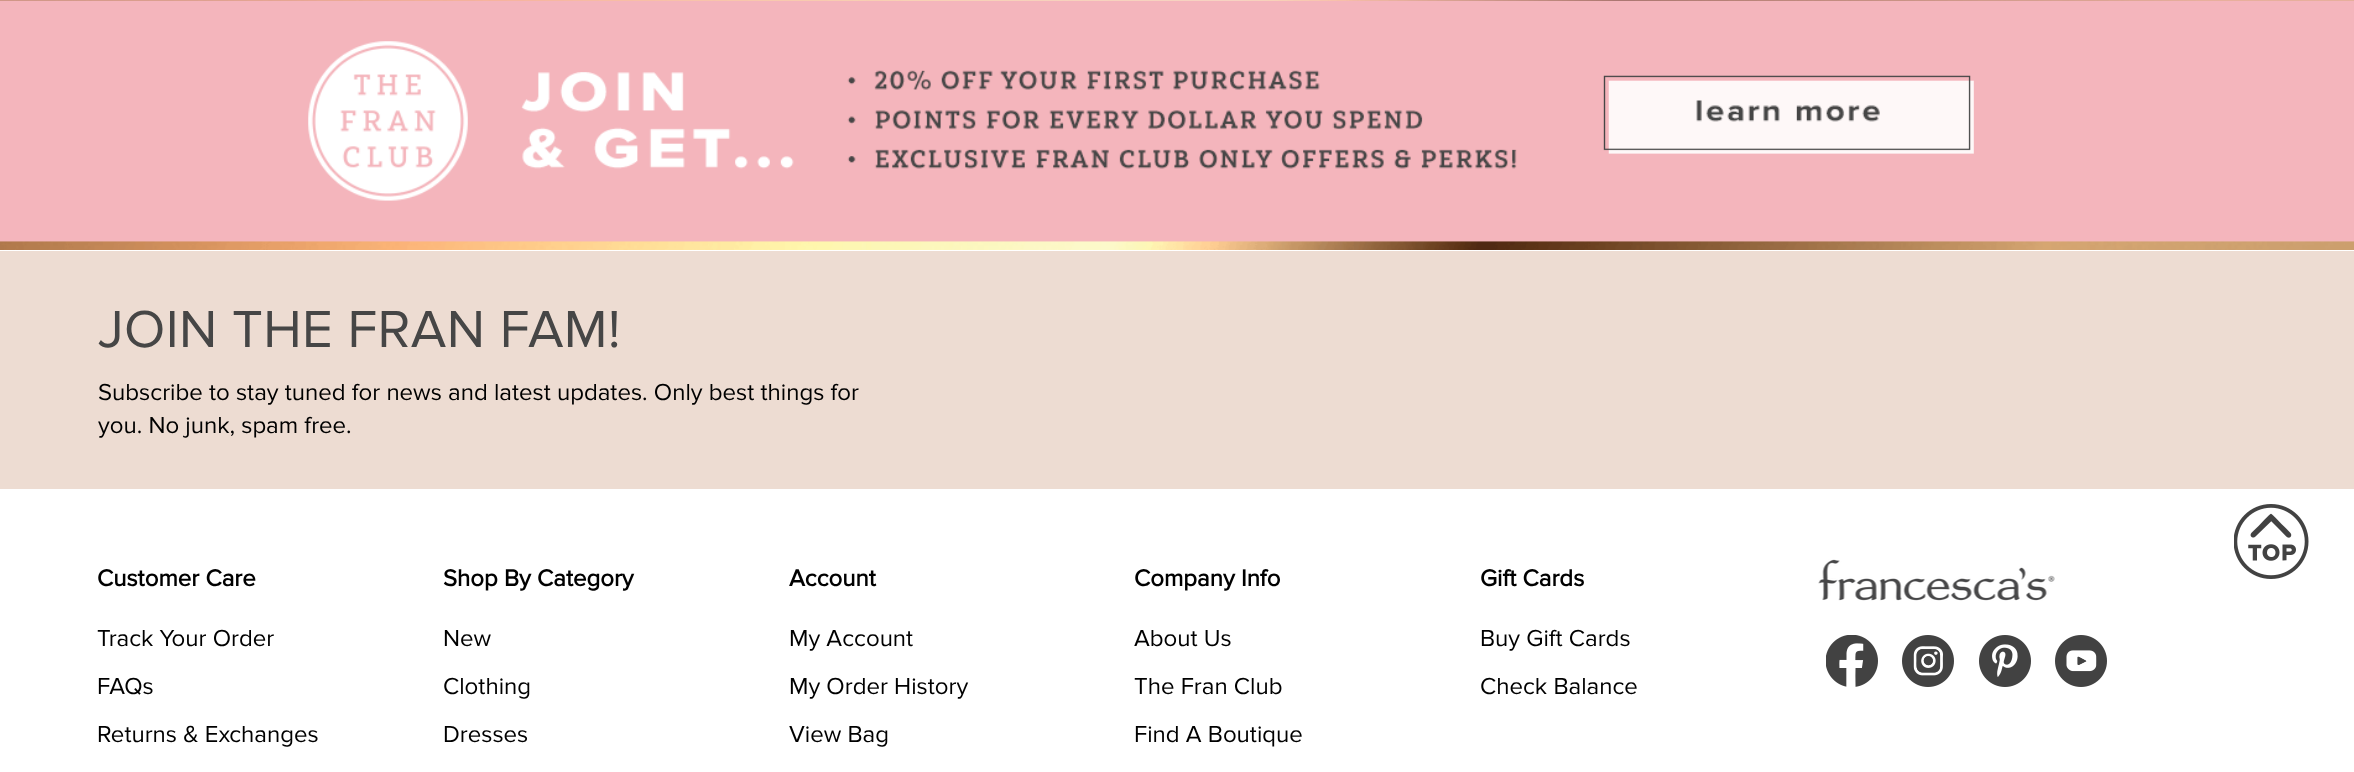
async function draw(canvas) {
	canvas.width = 2354;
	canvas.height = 772;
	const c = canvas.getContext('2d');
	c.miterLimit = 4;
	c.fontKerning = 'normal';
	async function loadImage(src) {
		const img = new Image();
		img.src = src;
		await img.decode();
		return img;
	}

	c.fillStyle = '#fff';
	c.fillRect(0, 0, 2354, 772);
	c.drawImage(await loadImage('img1.png'), 0, 0, 2354, 250);
	c.fillStyle = '#eddcd2';
	c.fillRect(0, 251, 2354, 238);
	c.letterSpacing = '0.4px';
	c.font = '54px Proxima Nova';
	c.fillStyle = '#464646';
	c.fillText('JOIN THE FRAN FAM!', 98, 347);
	c.letterSpacing = '0px';
	c.font = '24px Proxima Nova';
	c.fillStyle = '#000';
	c.fillText('Subscribe to stay tuned for news and latest updates. Only best things for', 98, 400);
	c.fillText('you. No junk, spam free.', 98, 433);
	c.font = 'bold 24px Proxima Nova';
	c.fillText('Customer Care', 97, 586);
	c.font = '24px Proxima Nova';
	for (const [text, x, y] of [
		['Track Your Order', 97, 646],
		['FAQs', 97, 694],
		['Returns & Exchanges', 97, 742],
	]) {
		c.fillText(text, x, y);
	}
	c.font = 'bold 24px Proxima Nova';
	c.fillText('Shop By Category', 443, 586);
	c.font = '24px Proxima Nova';
	for (const [text, x, y] of [
		['New', 443, 646],
		['Clothing', 443, 694],
		['Dresses', 443, 742],
	]) {
		c.fillText(text, x, y);
	}
	c.font = 'bold 24px Proxima Nova';
	c.fillText('Account', 789, 586);
	c.font = '24px Proxima Nova';
	for (const [text, x, y] of [
		['My Account', 789, 646],
		['My Order History', 789, 694],
		['View Bag', 789, 742],
	]) {
		c.fillText(text, x, y);
	}
	c.font = 'bold 24px Proxima Nova';
	c.fillText('Company Info', 1134, 586);
	c.font = '24px Proxima Nova';
	for (const [text, x, y] of [
		['About Us', 1134, 646],
		['The Fran Club', 1134, 694],
		['Find A Boutique', 1134, 742],
	]) {
		c.fillText(text, x, y);
	}
	c.font = 'bold 24px Proxima Nova';
	c.fillText('Gift Cards', 1480, 586);
	c.font = '24px Proxima Nova';
	c.fillText('Buy Gift Cards', 1480, 646);
	c.fillText('Check Balance', 1480, 694);
	c.drawImage(await loadImage('img2.png'), 1818, 559, 237, 42);
	c.drawImage(await loadImage('img3.png'), 1826, 635, 52, 52);
	c.drawImage(await loadImage('img4.png'), 1902, 635, 52, 52);
	c.drawImage(await loadImage('img5.png'), 1979, 635, 52, 52);
	c.drawImage(await loadImage('img6.png'), 2055, 635, 52, 52);
	c.drawImage(await loadImage('img7.png'), 2234, 504, 75, 75);
}

draw(document.querySelector('canvas'));
